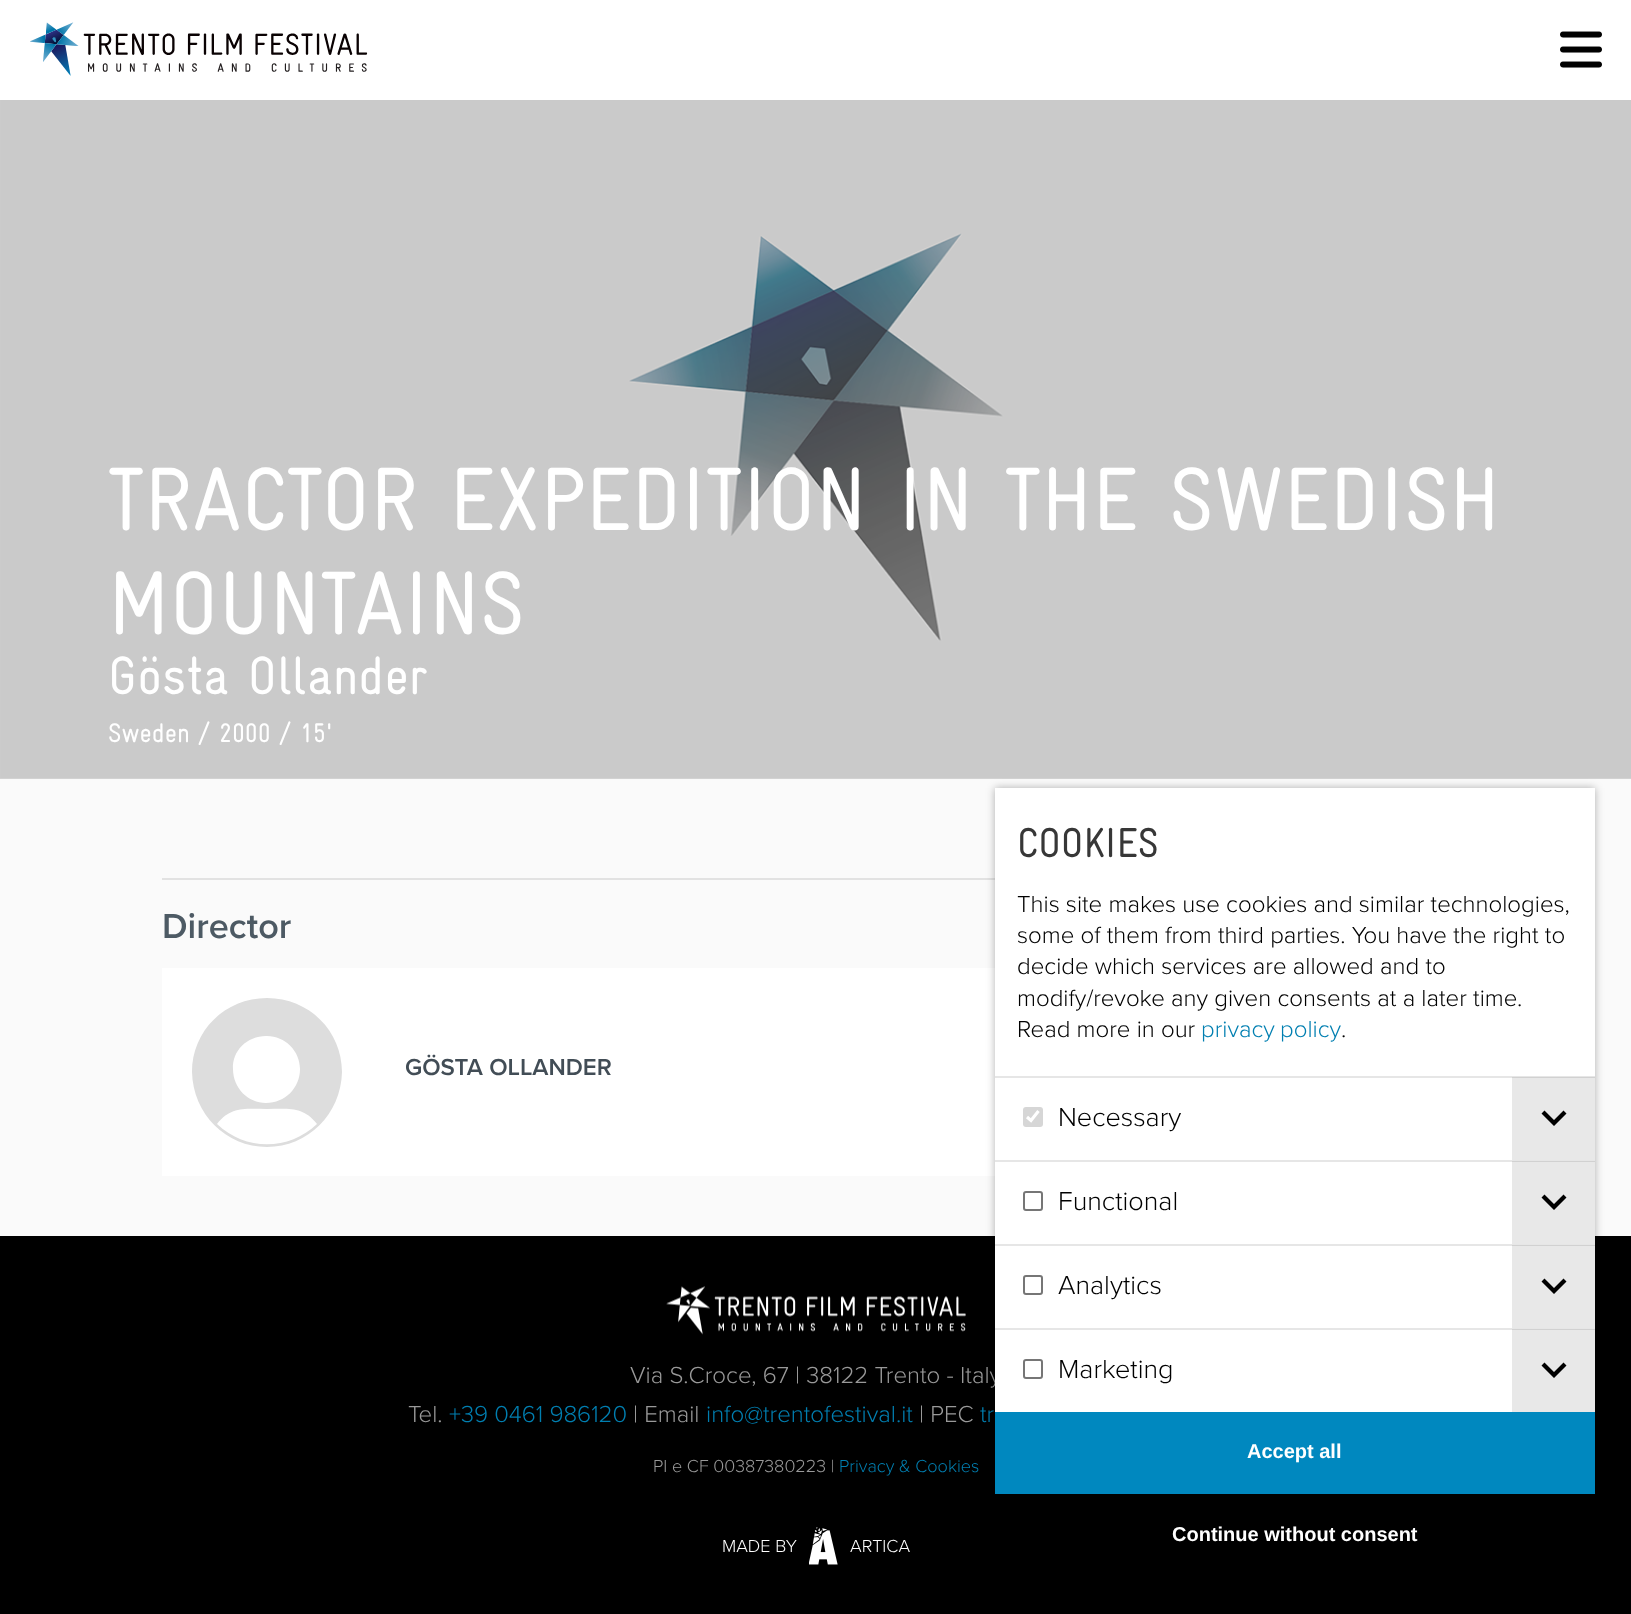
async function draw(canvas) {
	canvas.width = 1631;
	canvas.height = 1614;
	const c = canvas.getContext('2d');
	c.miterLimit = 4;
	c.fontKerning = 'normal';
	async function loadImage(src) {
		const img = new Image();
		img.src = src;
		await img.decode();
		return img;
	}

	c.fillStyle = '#fafafa';
	c.fillRect(0, 0, 1631, 1614);
	c.fillStyle = '#fff';
	c.fillRect(0, 0, 1631, 100);
	c.drawImage(await loadImage('img1.png'), 30, 22, 338, 54);
	c.drawImage(await loadImage('img2.png'), 1560, 31, 42, 37);
	c.fillStyle = '#d2d2d2';
	c.fillRect(0, 100, 1631, 679);
	c.drawImage(await loadImage('img3.png'), 0, 100, 1631, 678);
	c.font = '90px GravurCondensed';
	c.fillStyle = '#fff';
	c.fillText('TRACTOR EXPEDITION IN THE SWEDISH', 108, 530);
	c.fillText('MOUNTAINS', 108, 634);
	c.font = '54px GravurCondensed';
	c.fillText('Gösta Ollander', 108, 694);
	c.font = '27px GravurCondensed';
	c.fillText('Sweden / 2000 / 15\'', 108, 742);
	c.fillStyle = '#e2e2e2';
	c.fillRect(162, 878, 833, 2);
	c.font = '600 36px Proxima Nova';
	c.fillStyle = '#4d5a64';
	c.fillText('Director', 162, 938);
	c.fillStyle = '#fff';
	c.fillRect(162, 968, 833, 208);
	c.fillStyle = '#ddd';
	c.beginPath();
	c.moveTo(267, 998);
	c.bezierCurveTo(225, 998, 192, 1031, 192, 1072);
	c.bezierCurveTo(193, 1114, 226, 1147, 267, 1147);
	c.bezierCurveTo(308, 1147, 341, 1114, 342, 1072);
	c.bezierCurveTo(342, 1031, 309, 998, 267, 998);
	c.closePath();
	c.moveTo(267, 1036);
	c.bezierCurveTo(285, 1036, 300, 1051, 300, 1069);
	c.bezierCurveTo(300, 1088, 285, 1103, 266, 1103);
	c.bezierCurveTo(248, 1103, 233, 1088, 233, 1069);
	c.bezierCurveTo(232, 1051, 247, 1036, 266, 1036);
	c.closePath();
	c.moveTo(217, 1124);
	c.bezierCurveTo(231, 1106, 246, 1109, 267, 1109);
	c.bezierCurveTo(288, 1109, 303, 1106, 317, 1124);
	c.bezierCurveTo(289, 1151, 245, 1151, 217, 1124);
	c.fill();
	c.font = '600 24px Proxima Nova';
	c.fillStyle = '#424d56';
	c.fillText('GÖSTA OLLANDER', 405, 1075);
	c.fillStyle = '#000';
	c.fillRect(0, 1236, 1631, 378);
	c.drawImage(await loadImage('img4.png'), 666, 1286, 300, 49);
	c.font = '300 24px Proxima Nova';
	c.fillStyle = '#999';
	c.fillText('Via S.Croce, 67 | 38122 Trento - Italy', 630, 1383);
	c.fillText('Tel.', 408, 1422);
	c.fillStyle = '#007fb1';
	c.fillText('+39 0461 986120', 449, 1422);
	c.fillStyle = '#999';
	c.fillText('| Email', 633, 1422);
	c.fillStyle = '#007fb1';
	c.fillText('info@trentofestival.it', 706, 1422);
	c.fillStyle = '#999';
	c.fillText('| PEC', 919, 1422);
	c.fillStyle = '#007fb1';
	c.fillText('tr', 980, 1422);
	c.font = '300 18px Proxima Nova';
	c.fillStyle = '#999';
	c.fillText('PI e CF 00387380223 |', 653, 1472);
	c.fillStyle = '#007fb1';
	c.fillText('Privacy & Cookies', 839, 1472);
	c.fillStyle = '#fff';
	c.fillText('MADE BY', 722, 1552);
	c.drawImage(await loadImage('img5.png'), 809, 1527, 29, 38);
	c.fillText('ARTICA', 850, 1552);
	c.fillStyle = '#0000004d';
	c.filter = 'blur(4px)';
	c.beginPath();
	c.rect(995, 788, 600, 789);
	c.fill();
	c.filter = 'none';
	c.fillStyle = '#fff';
	c.fillRect(995, 788, 600, 624);
	c.font = '42px GravurCondensed';
	c.fillStyle = '#373737';
	c.fillText('COOKIES', 1017, 857);
	c.font = '300 24px Proxima Nova';
	c.fillStyle = '#000';
	for (const [text, x, y] of [
		['This site makes use cookies and similar technologies,', 1017, 912],
		['some of them from third parties. You have the right to', 1017, 943],
		['decide which services are allowed and to', 1017, 974],
		['modify/revoke any given consents at a later time.', 1017, 1006],
		['Read more in our', 1017, 1037],
	]) {
		c.fillText(text, x, y);
	}
	c.wordSpacing = '-1px';
	c.fillStyle = '#007fb1';
	c.fillText('privacy policy', 1201, 1037);
	c.wordSpacing = '0px';
	c.fillStyle = '#000';
	c.fillText('.', 1341, 1037);
	c.fillStyle = '#e6e6e6';
	c.fillRect(995, 1076, 600, 2);
	c.fillStyle = '#d6d6d6';
	c.beginPath();
	c.roundRect(1023, 1107, 20, 20, 3);
	c.fill();
	c.beginPath();
	c.moveTo(1027, 1117);
	c.lineTo(1031, 1120.5);
	c.lineTo(1038.5, 1111);
	c.strokeStyle = '#fff';
	c.lineWidth = 3.1;
	c.stroke();
	c.font = '300 27px Proxima Nova';
	c.fillStyle = '#000';
	c.fillText('Necessary', 1058, 1126);
	c.fillStyle = '#00000017';
	c.fillRect(1512, 1077, 83, 83);
	c.fillStyle = '#000';
	c.beginPath();
	c.moveTo(1563.5, 1110.5);
	c.lineTo(1566.5, 1113.5);
	c.lineTo(1554, 1126);
	c.lineTo(1541.5, 1113.5);
	c.lineTo(1544.5, 1110.5);
	c.lineTo(1554, 1120);
	c.closePath();
	c.fill();
	c.fillStyle = '#e6e6e6';
	c.fillRect(995, 1160, 600, 2);
	c.beginPath();
	c.roundRect(1024, 1192, 18, 18, 2);
	c.strokeStyle = '#767676';
	c.lineWidth = 2;
	c.stroke();
	c.fillStyle = '#000';
	c.fillText('Functional', 1058, 1210);
	c.fillStyle = '#00000017';
	c.fillRect(1512, 1161, 83, 83);
	c.fillStyle = '#000';
	c.beginPath();
	c.moveTo(1563.5, 1194.5);
	c.lineTo(1566.5, 1197.5);
	c.lineTo(1554, 1210);
	c.lineTo(1541.5, 1197.5);
	c.lineTo(1544.5, 1194.5);
	c.lineTo(1554, 1204);
	c.closePath();
	c.fill();
	c.fillStyle = '#e6e6e6';
	c.fillRect(995, 1244, 600, 2);
	c.beginPath();
	c.roundRect(1024, 1276, 18, 18, 2);
	c.stroke();
	c.fillStyle = '#000';
	c.fillText('Analytics', 1058, 1294);
	c.fillStyle = '#00000017';
	c.fillRect(1512, 1245, 83, 83);
	c.fillStyle = '#000';
	c.beginPath();
	c.moveTo(1563.5, 1278.5);
	c.lineTo(1566.5, 1281.5);
	c.lineTo(1554, 1294);
	c.lineTo(1541.5, 1281.5);
	c.lineTo(1544.5, 1278.5);
	c.lineTo(1554, 1288);
	c.closePath();
	c.fill();
	c.fillStyle = '#e6e6e6';
	c.fillRect(995, 1328, 600, 2);
	c.beginPath();
	c.roundRect(1024, 1360, 18, 18, 2);
	c.stroke();
	c.fillStyle = '#000';
	c.fillText('Marketing', 1058, 1378);
	c.fillStyle = '#00000017';
	c.fillRect(1512, 1329, 83, 83);
	c.fillStyle = '#000';
	c.beginPath();
	c.moveTo(1563.5, 1362.5);
	c.lineTo(1566.5, 1365.5);
	c.lineTo(1554, 1378);
	c.lineTo(1541.5, 1365.5);
	c.lineTo(1544.5, 1362.5);
	c.lineTo(1554, 1372);
	c.closePath();
	c.fill();
	c.fillStyle = '#0088bf';
	c.fillRect(995, 1412, 600, 82);
	c.font = 'bold 20px Liberation Sans';
	c.fillStyle = '#fff';
	c.fillText('Accept all', 1247, 1458);
	c.fillText('Continue without consent', 1172, 1541);
}

draw(document.querySelector('canvas'));
